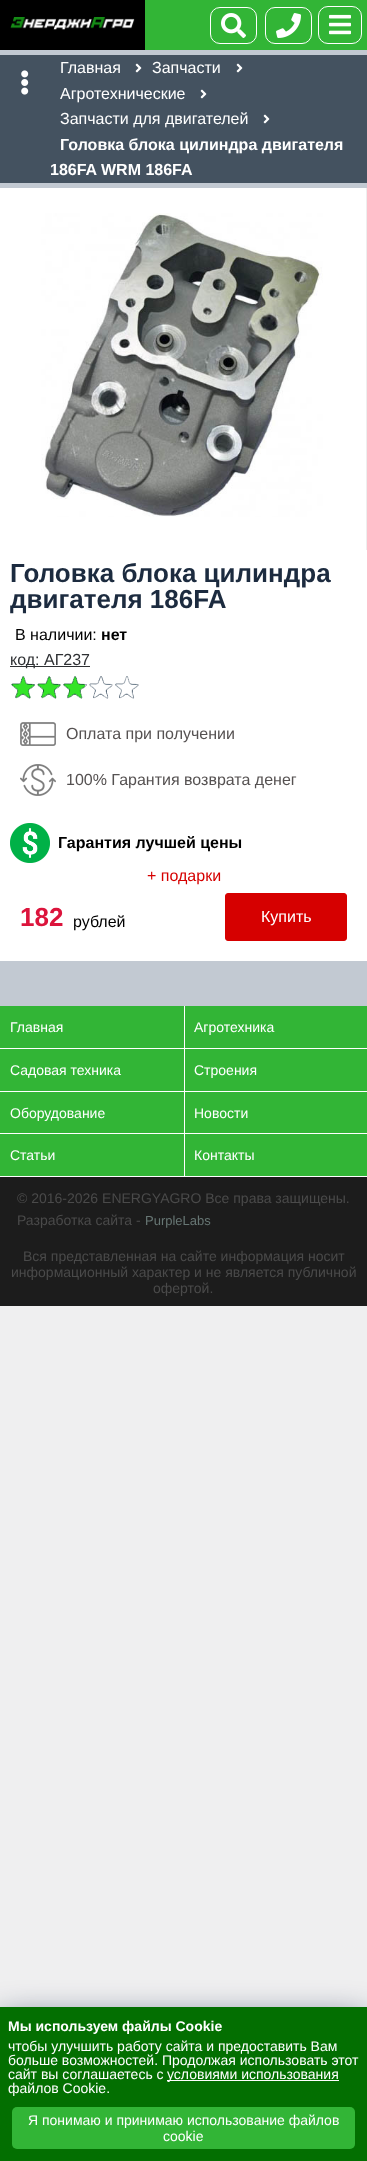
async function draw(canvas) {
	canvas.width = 367;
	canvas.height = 2161;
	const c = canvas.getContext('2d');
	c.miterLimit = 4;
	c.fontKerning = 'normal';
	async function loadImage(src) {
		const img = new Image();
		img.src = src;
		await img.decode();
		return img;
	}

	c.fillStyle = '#efeff0';
	c.fillRect(0, 0, 367, 2161);
	c.fillStyle = '#32b536';
	c.fillRect(145, 0, 222, 50);
	c.fillStyle = '#000';
	c.fillRect(0, 0, 145, 50);
	c.drawImage(await loadImage('img1.png'), 10, 17, 125, 13);
	c.beginPath();
	c.roundRect(210.5, 7.5, 46, 36, 9.5);
	c.strokeStyle = '#fff';
	c.stroke();
	c.drawImage(await loadImage('img2.png'), 221, 13, 25, 25);
	c.beginPath();
	c.roundRect(265.5, 7.5, 46, 36, 9.5);
	c.stroke();
	c.drawImage(await loadImage('img3.png'), 276, 13, 25, 25);
	c.beginPath();
	c.roundRect(318.5, 6.5, 43, 37, 9.5);
	c.stroke();
	c.drawImage(await loadImage('img4.png'), 329, 14, 22, 21);
	c.fillStyle = '#c2c9d2';
	c.fillRect(0, 50, 367, 956);
	c.fillStyle = '#445260';
	c.fillRect(0, 55, 367, 128);
	c.font = '16px Liberation Sans';
	c.fillStyle = '#fff';
	c.fillText('Главная', 60, 73);
	c.drawImage(await loadImage('img5.png'), 135, 63, 7, 10);
	c.fillText('Запчасти', 152, 73);
	c.drawImage(await loadImage('img5.png'), 236, 63, 7, 10);
	c.fillText('Агротехнические', 60, 99);
	c.drawImage(await loadImage('img5.png'), 200, 89, 7, 10);
	c.fillText('Запчасти для двигателей', 60, 124);
	c.drawImage(await loadImage('img5.png'), 263, 114, 7, 10);
	c.font = 'bold 16px Liberation Sans';
	c.fillText('Головка блока цилиндра двигателя', 60, 150);
	c.fillText('186FA WRM 186FA', 50, 175);
	c.fillRect(0, 188, 366, 362);
	c.fillStyle = '#eee';
	c.fillRect(366, 188, 1, 362);
	c.drawImage(await loadImage('img6.png'), 41, 213, 282, 304);
	c.fillStyle = '#fff';
	c.fillRect(0, 550, 367, 411);
	c.font = 'bold 26px Liberation Sans';
	c.fillStyle = '#1c2b3f';
	c.fillText('Головка блока цилиндра', 10, 582);
	c.fillText('двигателя 186FA', 10, 608);
	c.font = '16px Liberation Sans';
	c.fillStyle = '#000';
	c.fillText('В наличии:', 15, 640);
	c.font = 'bold 16px Liberation Sans';
	c.fillText('нет', 101, 640);
	c.fillStyle = '#2e3033';
	c.fillRect(10, 666, 80, 1);
	c.font = '16px Liberation Sans';
	c.fillText('код: АГ237', 10, 665);
	c.fillStyle = '#34e428';
	c.fillRect(11, 676, 74, 23);
	c.drawImage(await loadImage('img7.png'), 10, 673, 129, 28);
	c.drawImage(await loadImage('img8.png'), 20, 722, 36, 24);
	c.fillStyle = '#565252';
	c.fillText('Оплата при получении', 66, 739);
	c.drawImage(await loadImage('img9.png'), 20, 764, 36, 32);
	c.fillText('100% Гарантия возврата денег', 66, 785);
	c.drawImage(await loadImage('img10.png'), 10, 823, 40, 40);
	c.font = 'bold 16px Liberation Sans';
	c.fillStyle = '#000';
	c.fillText('Гарантия лучшей цены', 58, 848);
	c.font = '16px Liberation Sans';
	c.fillStyle = '#d60000';
	c.fillText('+ подарки', 147, 881);
	c.font = 'bold 26px Liberation Sans';
	c.fillStyle = '#dc143c';
	c.fillText('182', 20, 926);
	c.font = '16px Liberation Sans';
	c.fillStyle = '#000';
	c.fillText('рублей', 73, 927);
	c.fillStyle = '#d60000';
	c.beginPath();
	c.roundRect(225.5, 893.5, 121, 47, 2.5);
	c.fill();
	c.strokeStyle = '#d60000';
	c.stroke();
	c.fillStyle = '#fff';
	c.fillText('Купить', 261, 922);
	c.drawImage(await loadImage('img11.png'), 21, 70, 8, 25);
	c.fillStyle = '#32b536';
	c.fillRect(0, 1006, 367, 170);
	c.fillStyle = '#fff';
	c.fillRect(0, 1048, 367, 1);
	c.font = '14px Liberation Sans';
	c.fillText('Главная', 10, 1032);
	for (const [x, y, w, h, color] of [
		[0, 1091, 367, 1, '#fff'],
		[0, 1133, 367, 1, '#fff'],
		[0, 1176, 367, 1, '#fff'],
		[184, 1006, 1, 171, '#fff'],
	]) {
		c.fillStyle = color;
		c.fillRect(x, y, w, h);
	}
	for (const [text, x, y] of [
		['Агротехника', 194, 1032],
		['Садовая техника', 10, 1075],
		['Строения', 194, 1075],
		['Оборудование', 10, 1118],
		['Новости', 194, 1118],
		['Статьи', 10, 1160],
		['Контакты', 194, 1160],
	]) {
		c.fillText(text, x, y);
	}
	c.fillStyle = '#1c1c1c';
	c.fillRect(0, 1177, 367, 129);
	c.fillStyle = '#4a4a4a';
	c.fillText('© 2016-2026 ENERGYAGRO Все права защищены.', 17, 1203);
	c.fillText('Разработка сайта -', 17, 1225);
	c.font = '13px Liberation Sans';
	c.fillStyle = '#677674';
	c.fillText('PurpleLabs', 145, 1225);
	c.font = '14px Liberation Sans';
	c.fillStyle = '#4a4a4a';
	for (const [text, x, y] of [
		['Вся представленная на сайте информация носит', 23, 1261],
		['информационный характер и не является публичной', 11, 1277],
		['офертой.', 153, 1293],
	]) {
		c.fillText(text, x, y);
	}
	c.fillStyle = '#00143c';
	c.filter = 'blur(19px)';
	c.beginPath();
	c.rect(0, 2026, 367, 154);
	c.fill();
	c.filter = 'none';
	c.fillStyle = '#036f01';
	c.fillRect(0, 2007, 367, 154);
	c.font = 'bold 14px Liberation Sans';
	c.fillStyle = '#fff';
	c.fillText('Мы используем файлы Cookie', 8, 2031);
	c.font = '14px Liberation Sans';
	for (const [text, x, y] of [
		['чтобы улучшить работу сайта и предоставить Вам', 8, 2051],
		['больше возможностей. Продолжая использовать этот', 8, 2065],
		['сайт вы соглашаетесь с', 8, 2079],
	]) {
		c.fillText(text, x, y);
	}
	c.fillRect(167, 2080, 172, 1);
	c.fillText('условиями использования', 167, 2079);
	c.fillText('файлов Cookie.', 8, 2093);
	c.fillStyle = '#32b536';
	c.beginPath();
	c.roundRect(12, 2107, 343, 42, 5);
	c.fill();
	c.fillStyle = '#fff';
	c.fillText('Я понимаю и принимаю использование файлов', 28, 2125);
	c.fillText('cookie', 163, 2141);
}

draw(document.querySelector('canvas'));
